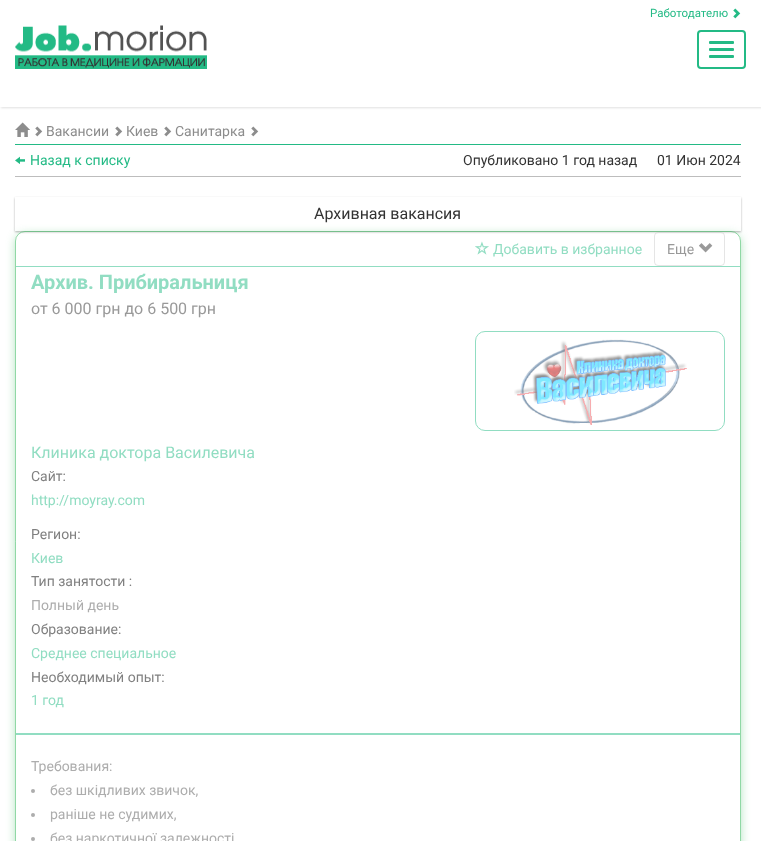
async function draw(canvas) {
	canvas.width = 761;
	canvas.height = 841;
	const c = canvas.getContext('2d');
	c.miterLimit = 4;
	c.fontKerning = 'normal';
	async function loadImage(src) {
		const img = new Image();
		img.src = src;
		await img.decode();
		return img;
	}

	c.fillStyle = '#fff';
	c.fillRect(0, 0, 761, 841);
	c.save();
	c.beginPath();
	c.rect(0, 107, 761, 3);
	c.clip();
	c.fillStyle = '#e0e0e0';
	c.filter = 'blur(1px)';
	c.beginPath();
	c.rect(1, 1, 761, 107);
	c.fill();
	c.filter = 'none';
	c.restore();
	c.font = '11.5px Roboto';
	c.fillStyle = '#23ba85';
	c.fillText('Работодателю', 650, 17);
	c.drawImage(await loadImage('img1.png'), 733, 8, 8, 11);
	c.drawImage(await loadImage('img2.png'), 15, 25, 192, 44);
	c.beginPath();
	c.roundRect(698, 31, 47, 37, 3);
	c.strokeStyle = '#23ba85';
	c.lineWidth = 2;
	c.stroke();
	c.beginPath();
	c.roundRect(709, 41, 25, 3, 1);
	c.fill();
	c.beginPath();
	c.roundRect(709, 48, 25, 3, 1);
	c.fill();
	c.beginPath();
	c.roundRect(709, 55, 25, 3, 1);
	c.fill();
	c.drawImage(await loadImage('img3.png'), 15, 122, 15, 15);
	c.drawImage(await loadImage('img4.png'), 35, 126, 8, 11);
	c.font = '14px Roboto';
	c.fillStyle = '#8c8c8c';
	c.fillText('Вакансии', 46, 136);
	c.drawImage(await loadImage('img4.png'), 115, 126, 8, 11);
	c.fillText('Киев', 126, 136);
	c.drawImage(await loadImage('img4.png'), 164, 126, 8, 11);
	c.fillText('Санитарка', 175, 136);
	c.drawImage(await loadImage('img4.png'), 251, 126, 8, 11);
	c.fillStyle = '#23ba85';
	c.fillRect(15, 144, 726, 1);
	c.drawImage(await loadImage('img5.png'), 15, 156, 10, 8);
	c.fillText('Назад к списку', 30, 165);
	c.fillStyle = '#333';
	c.fillText('Опубликовано 1 год назад', 463, 165);
	c.fillText('01 Июн 2024', 657, 165);
	c.fillStyle = '#bdbdbd';
	c.fillRect(15, 176, 726, 1);
	c.save();
	c.beginPath();
	c.moveTo(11, 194);
	c.lineTo(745, 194);
	c.lineTo(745, 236);
	c.lineTo(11, 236);
	c.closePath();
	c.moveTo(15, 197);
	c.lineTo(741, 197);
	c.lineTo(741, 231);
	c.lineTo(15, 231);
	c.closePath();
	c.clip('evenodd');
	c.fillStyle = '#0000004d';
	c.filter = 'blur(1px)';
	c.beginPath();
	c.rect(15, 198, 726, 34);
	c.fill();
	c.filter = 'none';
	c.restore();
	c.font = '16px Roboto';
	c.fillStyle = '#333';
	c.fillText('Архивная вакансия', 314, 219);
	c.save();
	c.beginPath();
	c.moveTo(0, 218);
	c.lineTo(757, 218);
	c.lineTo(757, 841);
	c.lineTo(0, 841);
	c.closePath();
	c.moveTo(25, 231);
	c.lineTo(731, 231);
	c.bezierCurveTo(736.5, 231, 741, 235.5, 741, 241);
	c.lineTo(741, 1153);
	c.bezierCurveTo(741, 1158.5, 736.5, 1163, 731, 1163);
	c.lineTo(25, 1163);
	c.bezierCurveTo(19.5, 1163, 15, 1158.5, 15, 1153);
	c.lineTo(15, 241);
	c.bezierCurveTo(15, 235.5, 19.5, 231, 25, 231);
	c.closePath();
	c.clip('evenodd');
	c.fillStyle = '#22b14c59';
	c.filter = 'blur(5px)';
	c.beginPath();
	c.roundRect(15, 234, 726, 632, 10);
	c.fill();
	c.filter = 'none';
	c.restore();
	c.beginPath();
	c.roundRect(15.5, 231.5, 725, 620, 9.5);
	c.strokeStyle = '#22b14c80';
	c.lineWidth = 1;
	c.stroke();
	c.drawImage(await loadImage('img6.png'), 475, 241, 14, 14);
	c.font = '14px Roboto';
	c.fillStyle = '#91ddc2';
	c.fillText('Добавить в избранное', 493, 254);
	c.beginPath();
	c.roundRect(654.5, 232.5, 70, 33, 3.5);
	c.strokeStyle = '#cccccc80';
	c.stroke();
	c.fillStyle = '#999';
	c.fillText('Еще', 667, 254);
	c.drawImage(await loadImage('img7.png'), 699, 243, 14, 10);
	c.fillStyle = '#91ddc2';
	c.fillRect(16, 266, 724, 1);
	c.font = 'bold 20px Roboto';
	c.fillText('Архив. Прибиральниця', 31, 289);
	c.font = '16px Roboto';
	c.fillStyle = '#999';
	c.fillText('от 6 000 грн до 6 500 грн', 31, 314);
	c.beginPath();
	c.roundRect(475.5, 331.5, 249, 99, 9.5);
	c.strokeStyle = '#91ddc2';
	c.stroke();
	c.drawImage(await loadImage('img8.png'), 514, 339, 173, 86);
	c.fillStyle = '#91ddc2';
	c.fillText('Клиника доктора Василевича', 31, 458);
	c.font = '14px Roboto';
	c.fillStyle = '#808080';
	c.fillText('Сайт:', 31, 481);
	c.fillStyle = '#91ddc2';
	c.fillText('http://moyray.com', 31, 505);
	c.fillRect(16, 733, 724, 2);
	c.fillStyle = '#808080';
	c.fillText('Регион:', 31, 539);
	c.fillStyle = '#91ddc2';
	c.fillText('Киев', 31, 563);
	c.fillStyle = '#808080';
	c.fillText('Тип занятости :', 31, 586);
	c.fillStyle = '#adadad';
	c.fillText('Полный день', 31, 610);
	c.fillStyle = '#808080';
	c.fillText('Образование:', 31, 634);
	c.fillStyle = '#91ddc2';
	c.fillText('Среднее специальное', 31, 658);
	c.fillStyle = '#808080';
	c.fillText('Необходимый опыт:', 31, 682);
	c.fillStyle = '#91ddc2';
	c.fillText('1 год', 31, 705);
	c.fillStyle = '#adadad';
	c.fillText('Требования:', 31, 771);
	c.beginPath();
	c.arc(33, 791, 2, 0, 2 * Math.PI);
	c.fill();
	c.fillText('без шкідливих звичок,', 50, 795);
	c.beginPath();
	c.arc(33, 815, 2, 0, 2 * Math.PI);
	c.fill();
	c.fillText('раніше не судимих,', 50, 819);
	c.beginPath();
	c.arc(33, 839, 2, 0, 2 * Math.PI);
	c.fill();
	c.fillText('без наркотичної залежності', 50, 843);
}

draw(document.querySelector('canvas'));
